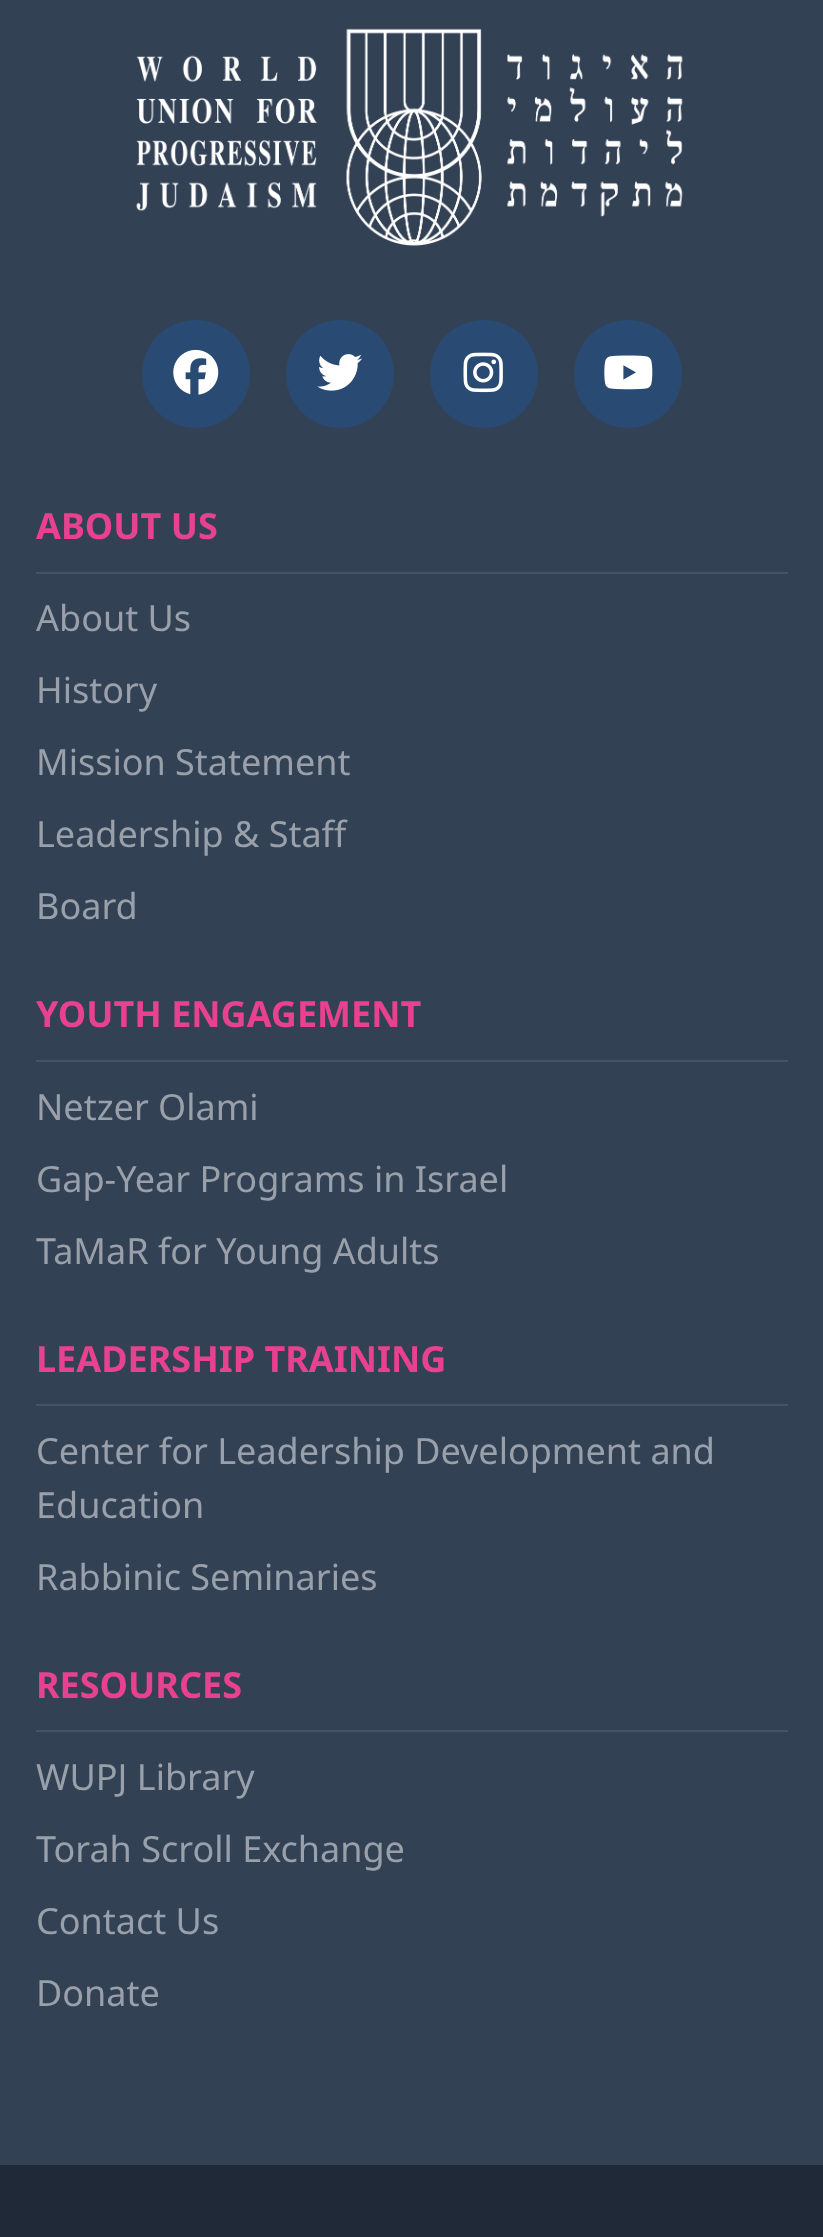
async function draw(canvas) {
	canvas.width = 823;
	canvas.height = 2237;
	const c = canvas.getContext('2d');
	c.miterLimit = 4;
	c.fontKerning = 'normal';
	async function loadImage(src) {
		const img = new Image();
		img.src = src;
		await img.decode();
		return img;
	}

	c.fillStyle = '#334155';
	c.fillRect(0, 0, 823, 2237);
	c.drawImage(await loadImage('img1.png'), 136, 28, 547, 218);
	c.fillStyle = '#20549080';
	c.beginPath();
	c.arc(196, 374, 54, 0, 2 * Math.PI);
	c.fill();
	c.drawImage(await loadImage('img2.png'), 173, 349, 46, 46);
	c.beginPath();
	c.arc(340, 374, 54, 0, 2 * Math.PI);
	c.fill();
	c.drawImage(await loadImage('img3.png'), 317, 354, 46, 37);
	c.beginPath();
	c.arc(484, 374, 54, 0, 2 * Math.PI);
	c.fill();
	c.drawImage(await loadImage('img4.png'), 463, 352, 40, 41);
	c.beginPath();
	c.arc(628, 374, 54, 0, 2 * Math.PI);
	c.fill();
	c.drawImage(await loadImage('img5.png'), 604, 355, 49, 35);
	c.fillStyle = '#475466';
	c.fillRect(36, 572, 752, 2);
	c.font = 'bold 36px Noto Sans';
	c.fillStyle = '#e8418f';
	c.fillText('ABOUT US', 36, 539);
	c.font = '36px Noto Sans';
	c.fillStyle = '#99a0aa';
	for (const [text, x, y] of [
		['About Us', 36, 631],
		['History', 36, 703],
		['Mission Statement', 36, 775],
		['Leadership & Staff', 36, 847],
		['Board', 36, 919],
	]) {
		c.fillText(text, x, y);
	}
	c.fillStyle = '#475466';
	c.fillRect(36, 1060, 752, 2);
	c.font = 'bold 36px Noto Sans';
	c.fillStyle = '#e8418f';
	c.fillText('YOUTH ENGAGEMENT', 36, 1027);
	c.font = '36px Noto Sans';
	c.fillStyle = '#99a0aa';
	for (const [text, x, y] of [
		['Netzer Olami', 36, 1120],
		['Gap-Year Programs in Israel', 36, 1192],
		['TaMaR for Young Adults', 36, 1264],
	]) {
		c.fillText(text, x, y);
	}
	c.fillStyle = '#475466';
	c.fillRect(36, 1404, 752, 2);
	c.font = 'bold 36px Noto Sans';
	c.fillStyle = '#e8418f';
	c.fillText('LEADERSHIP TRAINING', 36, 1372);
	c.font = '36px Noto Sans';
	c.fillStyle = '#99a0aa';
	for (const [text, x, y] of [
		['Center for Leadership Development and', 36, 1464],
		['Education', 36, 1518],
		['Rabbinic Seminaries', 36, 1590],
	]) {
		c.fillText(text, x, y);
	}
	c.fillStyle = '#475466';
	c.fillRect(36, 1730, 752, 2);
	c.font = 'bold 36px Noto Sans';
	c.fillStyle = '#e8418f';
	c.fillText('RESOURCES', 36, 1698);
	c.font = '36px Noto Sans';
	c.fillStyle = '#99a0aa';
	for (const [text, x, y] of [
		['WUPJ Library', 36, 1790],
		['Torah Scroll Exchange', 36, 1862],
		['Contact Us', 36, 1934],
		['Donate', 36, 2006],
	]) {
		c.fillText(text, x, y);
	}
	c.fillStyle = '#1f2937';
	c.fillRect(0, 2165, 823, 72);
}

draw(document.querySelector('canvas'));
